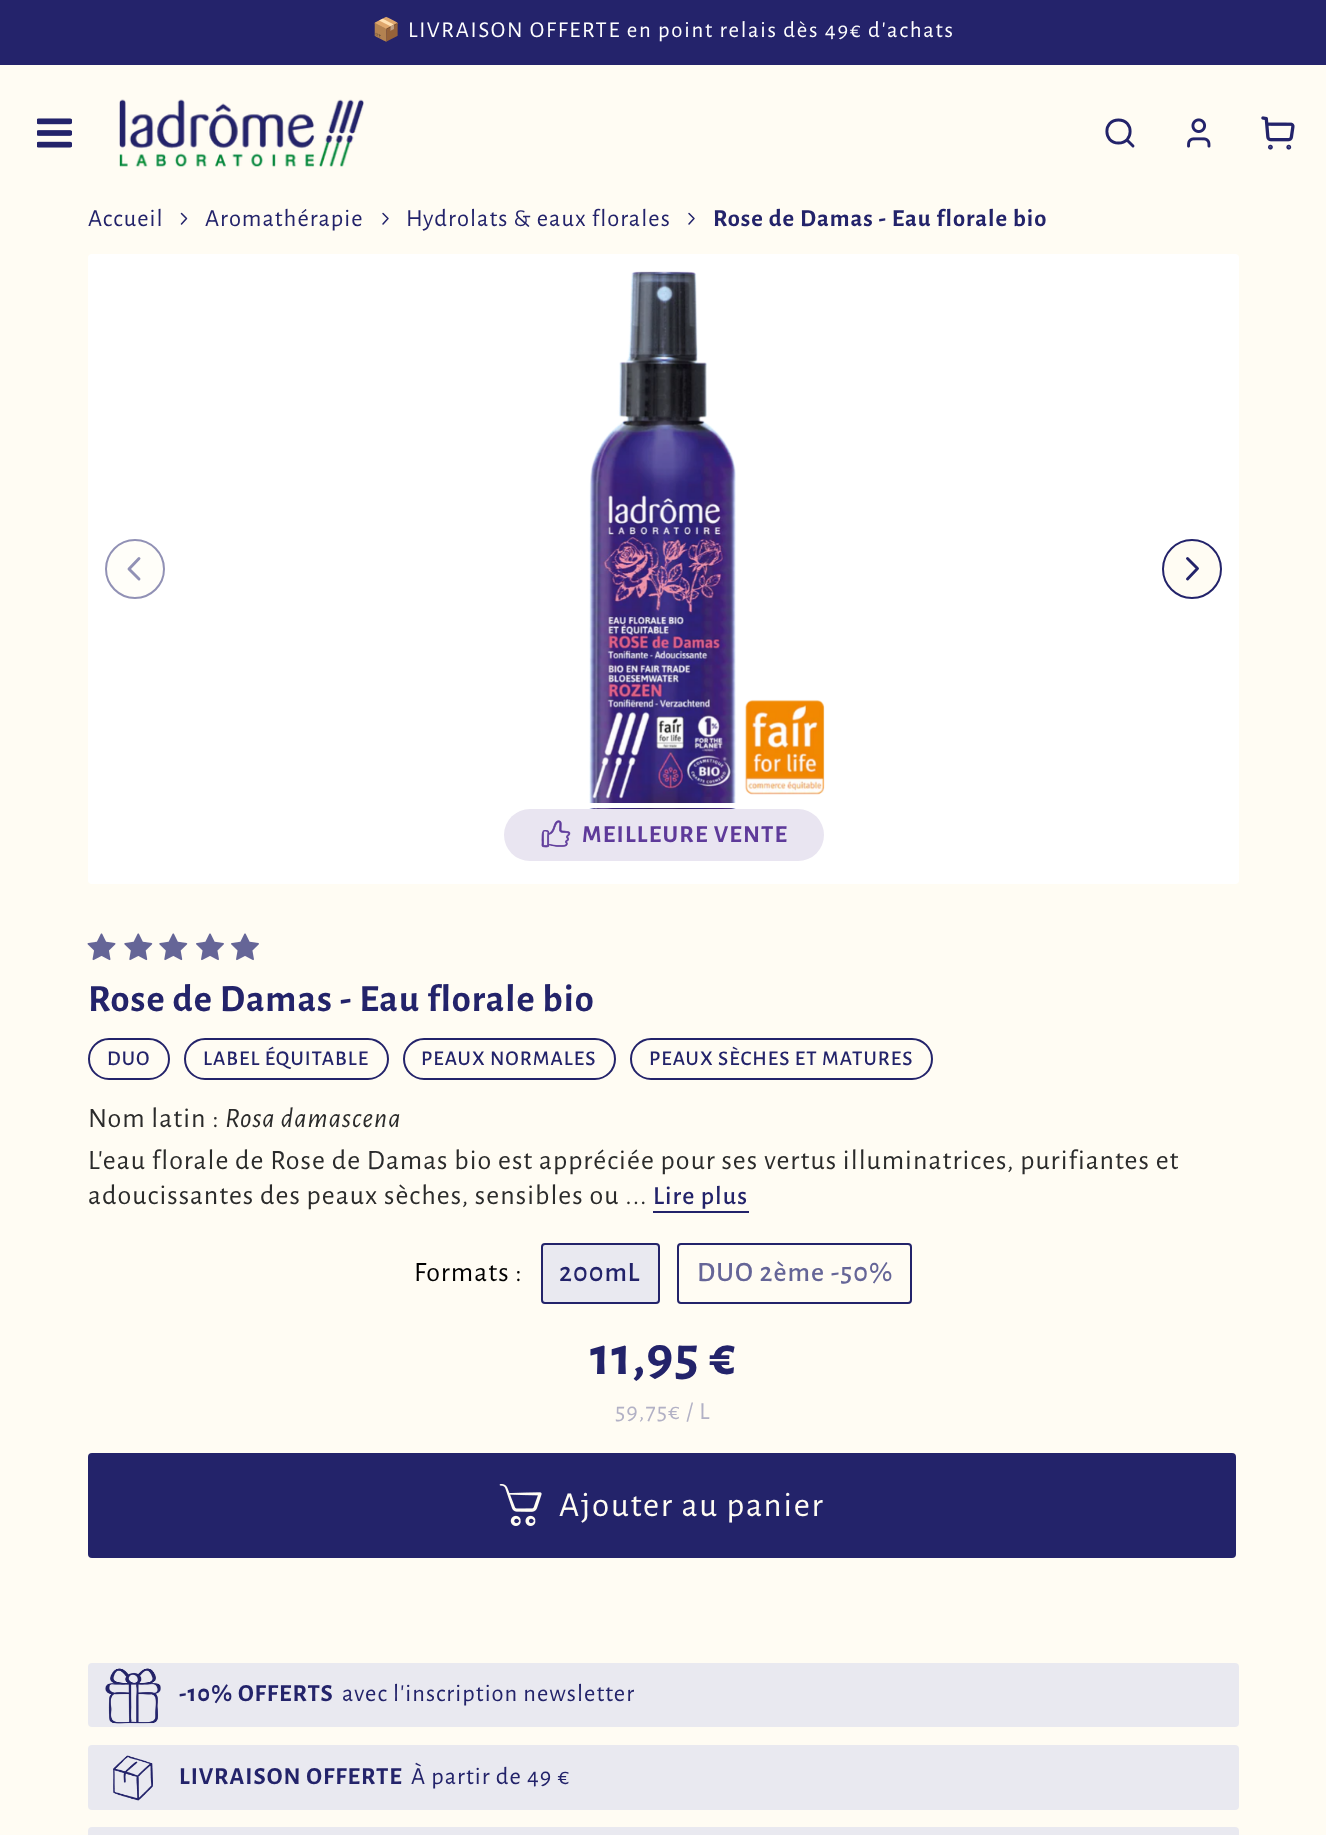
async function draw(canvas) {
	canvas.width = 1326;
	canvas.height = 1835;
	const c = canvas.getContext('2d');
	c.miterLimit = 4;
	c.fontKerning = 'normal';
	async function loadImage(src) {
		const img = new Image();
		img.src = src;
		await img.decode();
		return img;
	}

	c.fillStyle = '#fffcf3';
	c.fillRect(0, 0, 1326, 1835);
	c.fillStyle = '#24236b';
	c.fillRect(0, 0, 1326, 65);
	c.letterSpacing = '1.75px';
	c.font = '22.75px Noto Color Emoji';
	c.fillStyle = '#fff';
	c.fillText('📦', 372, 37);
	c.font = '22.75px Alegreya Sans';
	c.fillText('LIVRAISON OFFERTE en point relais dès 49€ d\'achats', 408, 37);
	c.drawImage(await loadImage('img1.png'), 37, 118, 35, 30);
	c.drawImage(await loadImage('img2.png'), 119, 99, 245, 68);
	c.beginPath();
	c.moveTo(1118.5, 143);
	c.bezierCurveTo(1134, 143, 1134, 120, 1118.5, 120);
	c.bezierCurveTo(1103, 120, 1103, 143, 1118.5, 143);
	c.closePath();
	c.moveTo(1133, 146);
	c.lineTo(1127, 140);
	c.strokeStyle = '#23236a';
	c.lineWidth = 2.9;
	c.lineCap = 'round';
	c.lineJoin = 'round';
	c.stroke();
	c.drawImage(await loadImage('img3.png'), 1187, 118, 24, 30);
	c.drawImage(await loadImage('img4.png'), 1261, 116, 34, 34);
	c.letterSpacing = '1.05px';
	c.font = '24.5px Alegreya Sans';
	c.fillStyle = '#23236a';
	c.fillText('Accueil', 88, 226);
	c.beginPath();
	c.moveTo(181.5, 213.5);
	c.lineTo(186.5, 218.5);
	c.lineTo(181.5, 224);
	c.lineWidth = 1.5;
	c.stroke();
	c.fillText('Aromathérapie', 205, 226);
	c.beginPath();
	c.moveTo(383, 213.5);
	c.lineTo(388, 218.5);
	c.lineTo(383, 224);
	c.stroke();
	c.fillText('Hydrolats & eaux florales', 406, 226);
	c.beginPath();
	c.moveTo(689, 213.5);
	c.lineTo(694, 218.5);
	c.lineTo(689, 224);
	c.stroke();
	c.font = 'bold 24.5px Alegreya Sans';
	c.fillText('Rose de Damas - Eau florale bio', 713, 226);
	c.fillStyle = '#fff';
	c.beginPath();
	c.roundRect(88, 254, 1151, 630, 4);
	c.fill();
	c.fillStyle = '#fffef9';
	c.beginPath();
	c.arc(135, 569, 29, 0, 2 * Math.PI);
	c.fill();
	c.strokeStyle = '#9191b5';
	c.lineWidth = 2;
	c.stroke();
	c.beginPath();
	c.moveTo(139, 579);
	c.lineTo(129, 569);
	c.lineTo(139, 558.5);
	c.lineWidth = 2.9;
	c.stroke();
	c.fillStyle = '#fffcf3';
	c.beginPath();
	c.arc(1192, 569, 29, 0, 2 * Math.PI);
	c.fill();
	c.strokeStyle = '#23236a';
	c.lineWidth = 2;
	c.stroke();
	c.beginPath();
	c.moveTo(1187.5, 558.5);
	c.lineTo(1197.5, 568.5);
	c.lineTo(1187.5, 579);
	c.lineWidth = 2.9;
	c.stroke();
	c.drawImage(await loadImage('img5.png'), 589, 271, 236, 538);
	c.beginPath();
	c.roundRect(501.5, 805.5, 326, 58, 29);
	c.strokeStyle = '#fff';
	c.lineWidth = 5;
	c.lineJoin = 'miter';
	c.stroke();
	c.fillStyle = '#e9e5f1';
	c.beginPath();
	c.roundRect(504, 809, 320, 52, 26);
	c.fill();
	c.drawImage(await loadImage('img6.png'), 541, 820, 30, 28);
	c.letterSpacing = '1.25px';
	c.fillStyle = '#5e3a9a';
	c.fillText('MEILLEURE VENTE', 582, 842);
	c.drawImage(await loadImage('img7.png'), 87, 933, 29, 28);
	c.drawImage(await loadImage('img8.png'), 124, 933, 29, 28);
	c.drawImage(await loadImage('img8.png'), 159, 933, 29, 28);
	c.drawImage(await loadImage('img9.png'), 196, 933, 28, 28);
	c.drawImage(await loadImage('img9.png'), 231, 933, 28, 28);
	c.letterSpacing = '1.05px';
	c.font = 'bold 38.5px Alegreya Sans';
	c.fillStyle = '#23236a';
	c.fillText('Rose de Damas - Eau florale bio', 88, 1011);
	c.beginPath();
	c.roundRect(89, 1039, 80, 40, 20);
	c.strokeStyle = '#23236a';
	c.lineWidth = 2;
	c.stroke();
	c.font = '500 21px Alegreya Sans';
	c.fillText('DUO', 107, 1065);
	c.beginPath();
	c.roundRect(185, 1039, 203, 40, 20);
	c.stroke();
	c.fillText('LABEL ÉQUITABLE', 203, 1065);
	c.beginPath();
	c.roundRect(404, 1039, 211, 40, 20);
	c.stroke();
	c.fillText('PEAUX NORMALES', 421, 1065);
	c.beginPath();
	c.roundRect(631, 1039, 301, 40, 20);
	c.stroke();
	c.fillText('PEAUX SÈCHES ET MATURES', 649, 1065);
	c.font = '28px Alegreya Sans';
	c.fillStyle = '#2b2b2b';
	c.fillText('Nom latin :', 88, 1127);
	c.font = 'italic 28px Alegreya Sans';
	c.fillText('Rosa damascena', 225, 1127);
	c.font = '28px Alegreya Sans';
	c.fillText('L\'eau florale de Rose de Damas bio est appréciée pour ses vertus illuminatrices, purifiantes et', 88, 1169);
	c.fillText('adoucissantes des peaux sèches, sensibles ou ...', 88, 1204);
	c.font = '500 26px Alegreya Sans';
	c.fillStyle = '#23236a';
	c.fillText('Lire plus', 653, 1204);
	c.fillRect(653, 1211, 96, 2);
	c.font = '28px Alegreya Sans';
	c.fillStyle = '#000';
	c.fillText('Formats :', 414, 1281);
	c.fillStyle = '#e9e9f0';
	c.beginPath();
	c.roundRect(542, 1244, 117, 59, 3);
	c.fill();
	c.stroke();
	c.font = '500 28px Alegreya Sans';
	c.fillStyle = '#23236a';
	c.fillText('200mL', 559, 1281);
	c.beginPath();
	c.roundRect(678, 1244, 233, 59, 3);
	c.stroke();
	c.fillStyle = '#656597';
	c.fillText('DUO 2ème -50%', 697, 1281);
	c.font = 'bold 56px Alegreya Sans';
	c.fillStyle = '#23236a';
	c.fillText('11,95 €', 590, 1374);
	c.font = '24.5px Alegreya Sans';
	c.fillStyle = '#b2b1c5';
	c.fillText('59,75€ / L', 615, 1419);
	c.fillStyle = '#23236a';
	c.beginPath();
	c.roundRect(88, 1453, 1148, 105, 4);
	c.fill();
	c.drawImage(await loadImage('img10.png'), 499, 1484, 43, 42);
	c.letterSpacing = '1.75px';
	c.font = '35px Alegreya Sans';
	c.fillStyle = '#fffcf3';
	c.fillText('Ajouter au panier', 559, 1516);
	c.fillStyle = '#e9e9f0';
	c.beginPath();
	c.roundRect(88, 1663, 1151, 64, 4);
	c.fill();
	c.drawImage(await loadImage('img11.png'), 105, 1668, 56, 56);
	c.letterSpacing = '1.05px';
	c.font = 'bold 24.5px Alegreya Sans';
	c.fillStyle = '#23236a';
	c.fillText('-10% OFFERTS', 179, 1701);
	c.font = '24.5px Alegreya Sans';
	c.fillText('avec l\'inscription newsletter', 342, 1701);
	c.fillStyle = '#e9e9f0';
	c.beginPath();
	c.roundRect(88, 1745, 1151, 65, 4);
	c.fill();
	c.drawImage(await loadImage('img12.png'), 113, 1755, 40, 46);
	c.font = 'bold 24.5px Alegreya Sans';
	c.fillStyle = '#23236a';
	c.fillText('LIVRAISON OFFERTE', 179, 1784);
	c.font = '24.5px Alegreya Sans';
	c.fillText('À partir de 49 €', 411, 1784);
	c.fillStyle = '#e9e9f0';
	c.beginPath();
	c.roundRect(88, 1827, 1151, 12, 4);
	c.fill();
}

draw(document.querySelector('canvas'));
